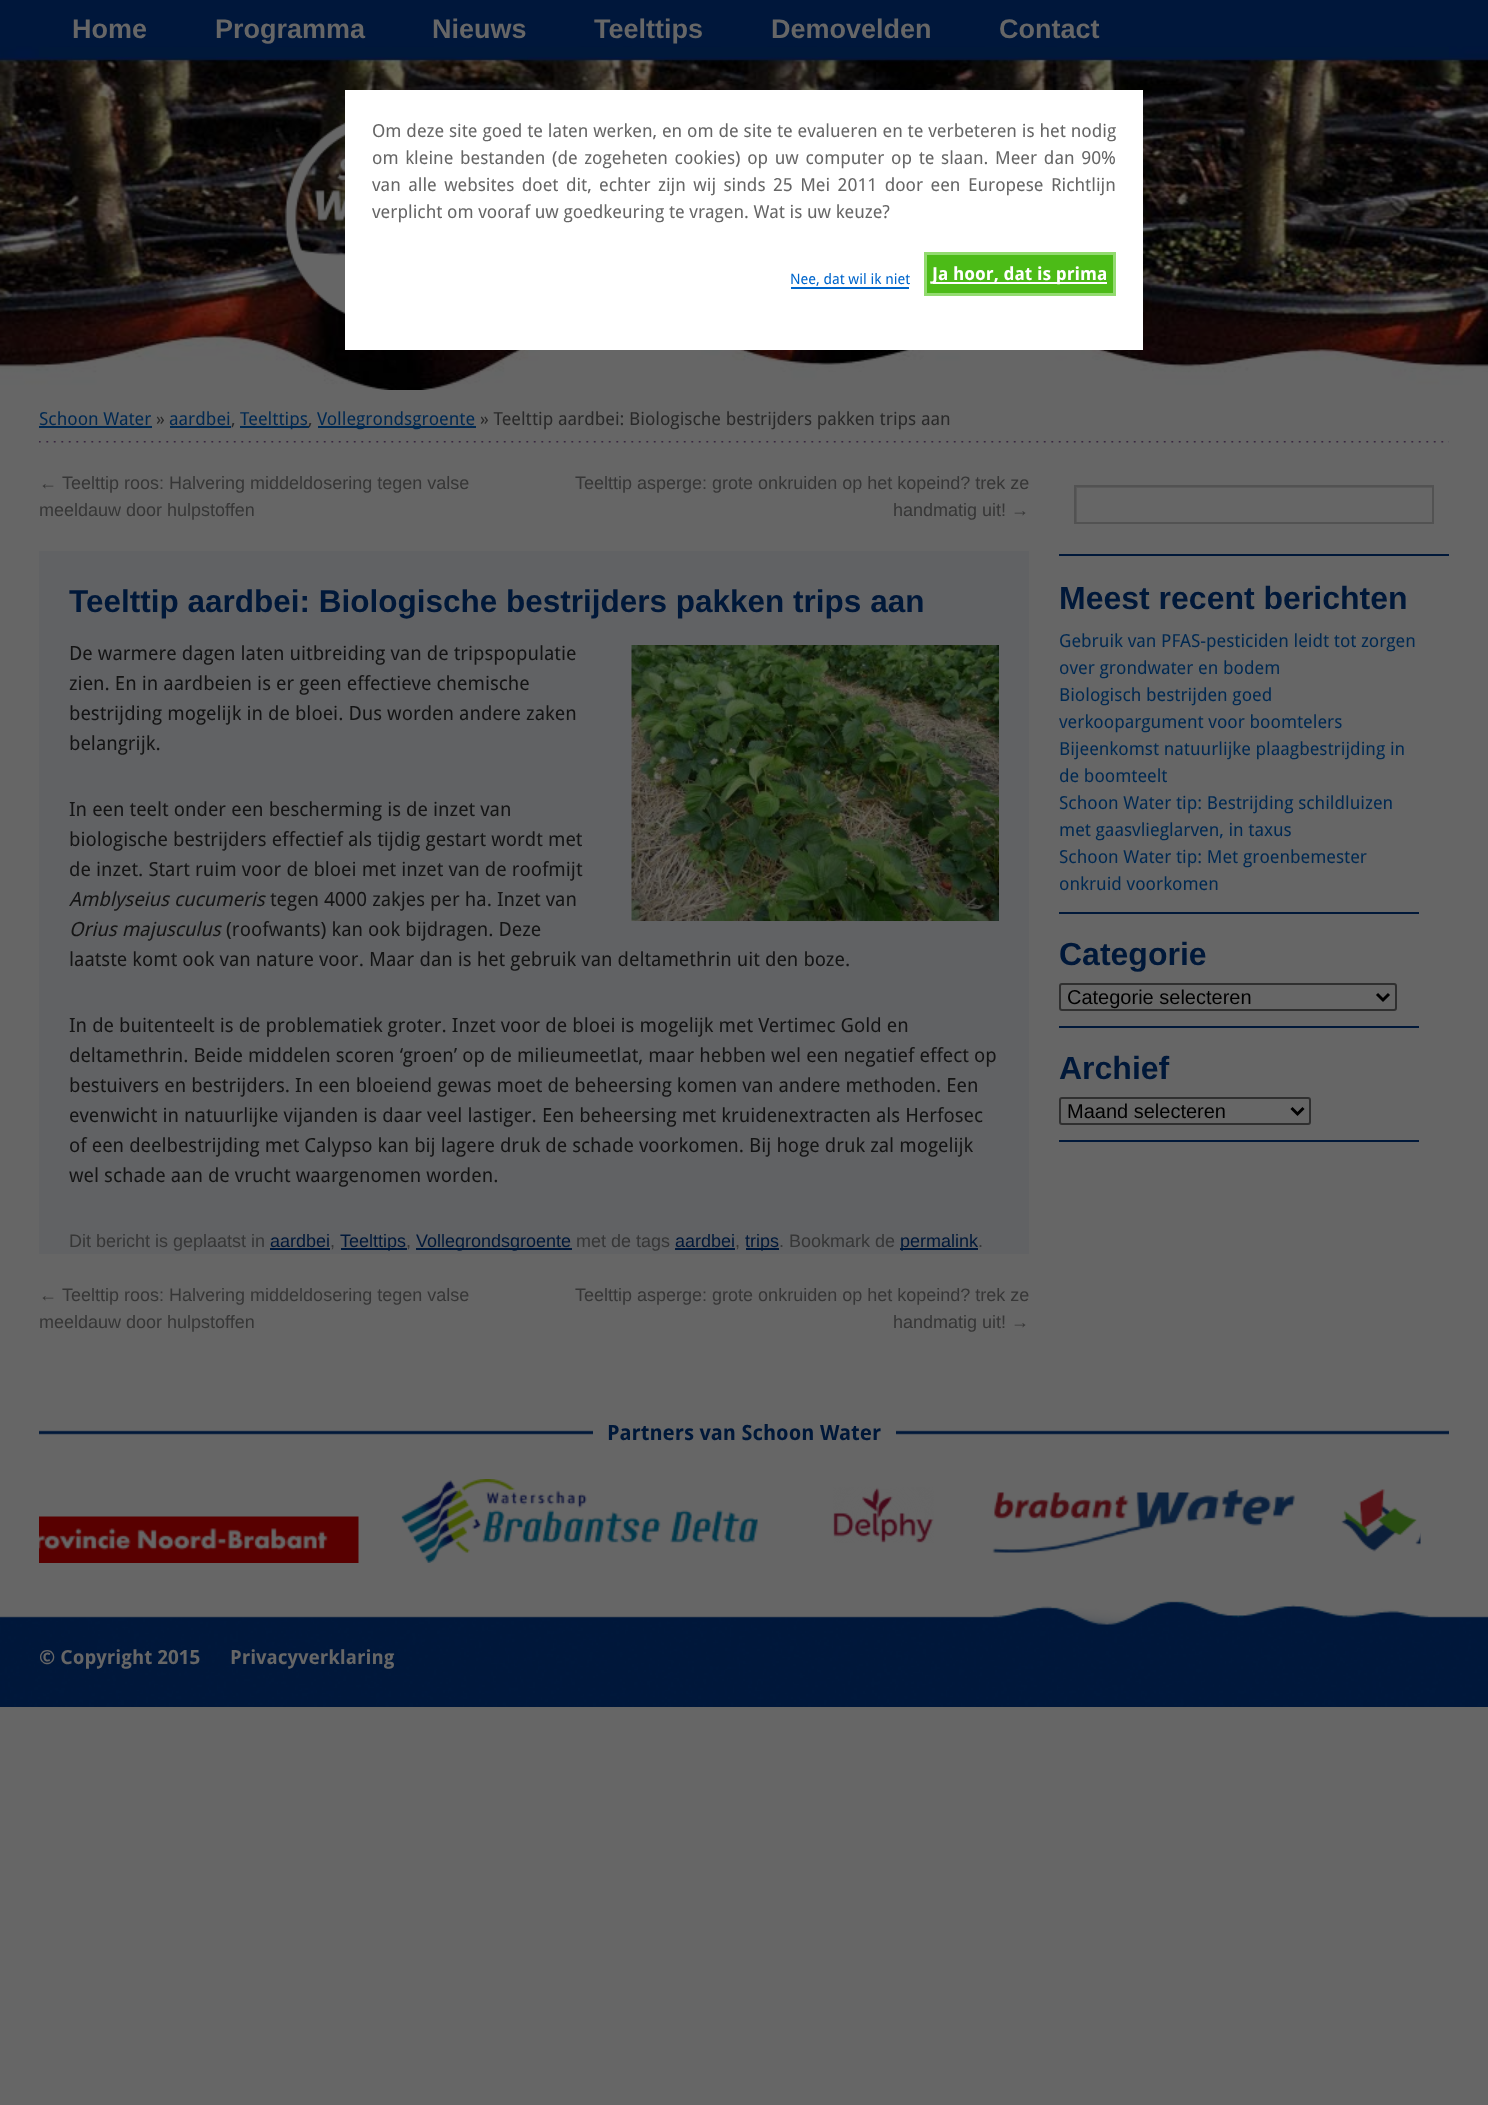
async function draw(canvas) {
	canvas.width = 1488;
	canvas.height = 2105;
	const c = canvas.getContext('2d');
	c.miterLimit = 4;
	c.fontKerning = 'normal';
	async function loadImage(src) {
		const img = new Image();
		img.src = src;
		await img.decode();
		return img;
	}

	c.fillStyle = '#666';
	c.fillRect(0, 0, 1488, 2105);
	c.drawImage(await loadImage('img1.png'), 0, 0, 1488, 390);
	c.fillStyle = '#001839';
	c.fillRect(39, 47, 1410, 10);
	c.font = 'bold 27px Liberation Sans';
	c.fillStyle = '#666';
	for (const [text, x, y] of [
		['Home', 72, 38],
		['Programma', 215, 38],
		['Nieuws', 432, 38],
		['Teelttips', 594, 38],
		['Demovelden', 771, 38],
		['Contact', 999, 38],
	]) {
		c.fillText(text, x, y);
	}
	c.drawImage(await loadImage('img2.png'), 281, 118, 64, 201);
	c.font = '18px Droid Sans';
	c.fillStyle = '#002952';
	c.fillText('Schoon Water', 39, 425);
	c.fillRect(39, 426, 113, 2);
	c.fillStyle = '#292929';
	c.fillText('»', 156, 425);
	c.fillStyle = '#002952';
	c.fillText('aardbei', 169, 425);
	c.fillRect(170, 426, 61, 2);
	c.fillRect(240, 426, 69, 2);
	c.fillText('Teelttips', 240, 425);
	c.fillRect(318, 426, 158, 2);
	c.fillText('Vollegrondsgroente', 317, 425);
	c.fillStyle = '#292929';
	for (const [text, x, y] of [
		['» Teelttip aardbei: Biologische bestrijders pakken trips aan', 480, 425],
		[',', 231, 425],
		[',', 308, 425],
	]) {
		c.fillText(text, x, y);
	}
	c.drawImage(await loadImage('img3.png'), 39, 441, 1410, 2);
	c.font = '18px Liberation Sans';
	c.fillStyle = '#363636';
	for (const [text, x, y] of [
		['←', 39, 489],
		['Teelttip roos: Halvering middeldosering tegen valse', 62, 489],
		['meeldauw door hulpstoffen', 39, 516],
		['Teelttip asperge: grote onkruiden op het kopeind? trek ze', 575, 489],
		['handmatig uit! →', 893, 516],
	]) {
		c.fillText(text, x, y);
	}
	c.fillStyle = '#616264';
	c.fillRect(39, 551, 990, 703);
	c.font = 'bold 31.5px Liberation Sans';
	c.fillStyle = '#001839';
	c.fillText('Teelttip aardbei: Biologische bestrijders pakken trips aan', 69, 612);
	c.font = '19.5px Droid Sans';
	c.fillStyle = '#141414';
	c.fillText('De warmere dagen laten uitbreiding van de tripspopulatie', 69, 660);
	c.drawImage(await loadImage('img4.png'), 631, 645, 368, 276);
	for (const [text, x, y] of [
		['zien. En in aardbeien is er geen effectieve chemische', 69, 690],
		['bestrijding mogelijk in de bloei. Dus worden andere zaken', 69, 720],
		['belangrijk.', 69, 750],
		['In een teelt onder een bescherming is de inzet van', 69, 816],
		['biologische bestrijders effectief als tijdig gestart wordt met', 69, 846],
		['de inzet. Start ruim voor de bloei met inzet van de roofmijt', 69, 876],
	]) {
		c.fillText(text, x, y);
	}
	c.font = 'italic 19.5px Droid Sans';
	c.fillText('Amblyseius cucumeris', 69, 906);
	c.font = '19.5px Droid Sans';
	c.fillText('tegen 4000 zakjes per ha. Inzet van', 270, 906);
	c.font = 'italic 19.5px Droid Sans';
	c.fillText('Orius majusculus', 69, 936);
	c.font = '19.5px Droid Sans';
	for (const [text, x, y] of [
		['(roofwants) kan ook bijdragen. Deze', 226, 936],
		['laatste komt ook van nature voor. Maar dan is het gebruik van deltamethrin uit den boze.', 69, 966],
		['In de buitenteelt is de problematiek groter. Inzet voor de bloei is mogelijk met Vertimec Gold en', 69, 1032],
		['deltamethrin. Beide middelen scoren ‘groen’ op de milieumeetlat, maar hebben wel een negatief effect op', 69, 1062],
		['bestuivers en bestrijders. In een bloeiend gewas moet de beheersing komen van andere methoden. Een', 69, 1092],
		['evenwicht in natuurlijke vijanden is daar veel lastiger. Een beheersing met kruidenextracten als Herfosec', 69, 1122],
		['of een deelbestrijding met Calypso kan bij lagere druk de schade voorkomen. Bij hoge druk zal mogelijk', 69, 1152],
		['wel schade aan de vrucht waargenomen worden.', 69, 1182],
	]) {
		c.fillText(text, x, y);
	}
	c.font = '18px Liberation Sans';
	c.fillStyle = '#363636';
	c.fillText('Dit bericht is geplaatst in', 69, 1247);
	c.fillStyle = '#001839';
	c.fillText('aardbei', 270, 1247);
	c.fillRect(270, 1248, 60, 2);
	c.fillStyle = '#363636';
	c.fillText(',', 330, 1247);
	c.fillStyle = '#001839';
	c.fillRect(341, 1248, 66, 2);
	c.fillText('Teelttips', 340, 1247);
	c.fillStyle = '#363636';
	c.fillText(',', 406, 1247);
	c.fillStyle = '#001839';
	c.fillRect(416, 1248, 156, 2);
	c.fillText('Vollegrondsgroente', 416, 1247);
	c.fillStyle = '#363636';
	c.fillText('met de tags', 576, 1247);
	c.fillStyle = '#001839';
	c.fillText('aardbei', 675, 1247);
	c.fillRect(675, 1248, 60, 2);
	c.fillStyle = '#363636';
	c.fillText(',', 735, 1247);
	c.fillStyle = '#001839';
	c.fillRect(746, 1248, 33, 2);
	c.fillText('trips', 745, 1247);
	c.fillStyle = '#363636';
	c.fillText('. Bookmark de', 779, 1247);
	c.fillStyle = '#001839';
	c.fillRect(900, 1248, 78, 2);
	c.fillText('permalink', 900, 1247);
	c.fillStyle = '#363636';
	for (const [text, x, y] of [
		['.', 978, 1247],
		['←', 39, 1301],
		['Teelttip roos: Halvering middeldosering tegen valse', 62, 1301],
		['meeldauw door hulpstoffen', 39, 1328],
		['Teelttip asperge: grote onkruiden op het kopeind? trek ze', 575, 1301],
		['handmatig uit! →', 893, 1328],
	]) {
		c.fillText(text, x, y);
	}
	c.fillStyle = '#001839';
	c.fillRect(1059, 554, 390, 2);
	c.save();
	c.beginPath();
	c.rect(1076, 486, 357, 36);
	c.clip();
	c.fillStyle = '#5a5a5a';
	c.beginPath();
	c.moveTo(927, 338);
	c.lineTo(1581, 338);
	c.lineTo(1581, 670);
	c.lineTo(927, 670);
	c.closePath();
	c.moveTo(1077, 488);
	c.lineTo(1434, 488);
	c.lineTo(1434, 524);
	c.lineTo(1077, 524);
	c.closePath();
	c.fill('evenodd');
	c.restore();
	c.strokeStyle = '#525252';
	c.lineWidth = 2;
	c.strokeRect(1075, 486, 358, 37);
	c.fillRect(1059, 912, 360, 2);
	c.font = 'bold 32px Liberation Sans';
	c.fillText('Meest recent berichten', 1059, 609);
	c.font = '18px Droid Sans';
	c.fillStyle = '#002952';
	for (const [text, x, y] of [
		['Gebruik van PFAS-pesticiden leidt tot zorgen', 1059, 647],
		['over grondwater en bodem', 1059, 674],
		['Biologisch bestrijden goed', 1059, 701],
		['verkoopargument voor boomtelers', 1059, 728],
		['Bijeenkomst natuurlijke plaagbestrijding in', 1059, 755],
		['de boomteelt', 1059, 782],
		['Schoon Water tip: Bestrijding schildluizen', 1059, 809],
		['met gaasvlieglarven, in taxus', 1059, 836],
		['Schoon Water tip: Met groenbemester', 1059, 863],
		['onkruid voorkomen', 1059, 890],
	]) {
		c.fillText(text, x, y);
	}
	c.fillStyle = '#001839';
	c.fillRect(1059, 1026, 360, 2);
	c.font = 'bold 32px Liberation Sans';
	c.fillText('Categorie', 1059, 965);
	c.beginPath();
	c.roundRect(1060, 984, 336, 26, 2);
	c.strokeStyle = '#2f2f2f';
	c.stroke();
	c.beginPath();
	c.moveTo(1377, 994);
	c.lineTo(1383, 1000);
	c.lineTo(1389, 994);
	c.strokeStyle = '#000';
	c.lineWidth = 3;
	c.stroke();
	c.font = '20px Liberation Sans';
	c.fillStyle = '#000';
	c.fillText('Categorie selecteren', 1067, 1004);
	c.fillStyle = '#001839';
	c.fillRect(1059, 1140, 360, 2);
	c.font = 'bold 32px Liberation Sans';
	c.fillText('Archief', 1059, 1079);
	c.beginPath();
	c.roundRect(1060, 1098, 250, 26, 2);
	c.strokeStyle = '#2f2f2f';
	c.lineWidth = 2;
	c.stroke();
	c.beginPath();
	c.moveTo(1291.5, 1108);
	c.lineTo(1297.5, 1114);
	c.lineTo(1303.5, 1108);
	c.strokeStyle = '#000';
	c.lineWidth = 3;
	c.stroke();
	c.font = '20px Liberation Sans';
	c.fillStyle = '#000';
	c.fillText('Maand selecteren', 1067, 1118);
	c.drawImage(await loadImage('img5.png'), 39, 1430, 1410, 5);
	c.fillStyle = '#666';
	c.fillRect(593, 1430, 303, 5);
	c.font = 'bold 21px Droid Sans';
	c.fillStyle = '#001839';
	c.fillText('Partners van Schoon Water', 607, 1440);
	c.drawImage(await loadImage('img6.png'), 39, 1516, 320, 47);
	c.drawImage(await loadImage('img7.png'), 401, 1479, 357, 84);
	c.drawImage(await loadImage('img8.png'), 833, 1487, 101, 56);
	c.drawImage(await loadImage('img9.png'), 992, 1489, 304, 65);
	c.drawImage(await loadImage('img10.png'), 1341, 1489, 80, 63);
	c.fillStyle = '#fff';
	c.fillRect(345, 90, 798, 260);
	c.wordSpacing = '0.2px';
	c.font = '18px Droid Sans';
	c.fillStyle = '#666';
	c.fillText('Om deze site goed te laten werken, en om de site te evalueren en te verbeteren is het nodig', 372, 137);
	c.wordSpacing = '2px';
	c.fillText('om kleine bestanden (de zogeheten cookies) op uw computer op te slaan. Meer dan 90%', 372, 164);
	c.wordSpacing = '2.75px';
	c.fillText('van alle websites doet dit, echter zijn wij sinds 25 Mei 2011 door een Europese Richtlijn', 372, 191);
	c.wordSpacing = '0px';
	c.fillText('verplicht om vooraf uw goedkeuring te vragen. Wat is uw keuze?', 372, 218);
	c.font = '14.5px Droid Sans';
	c.fillStyle = '#06c';
	c.fillText('Nee, dat wil ik niet', 790, 284);
	c.fillRect(791, 287, 118, 2);
	c.fillStyle = '#4cbb17';
	c.beginPath();
	c.rect(925.5, 253.5, 189, 41);
	c.fill();
	c.strokeStyle = '#93db70';
	c.stroke();
	c.fillStyle = '#fff';
	c.fillRect(933, 282, 174, 2);
	c.font = 'bold 18px Droid Sans';
	c.fillText('Ja hoor, dat is prima', 932, 280);
	c.drawImage(await loadImage('img11.png'), 0, 1616, 1488, 91);
	c.drawImage(await loadImage('img12.png'), 993, 1601, 436, 24);
	c.font = 'bold 19.5px Droid Sans';
	c.fillStyle = '#666';
	c.fillText('© Copyright 2015', 39, 1664);
	c.fillText('Privacyverklaring', 230, 1664);
}

draw(document.querySelector('canvas'));
